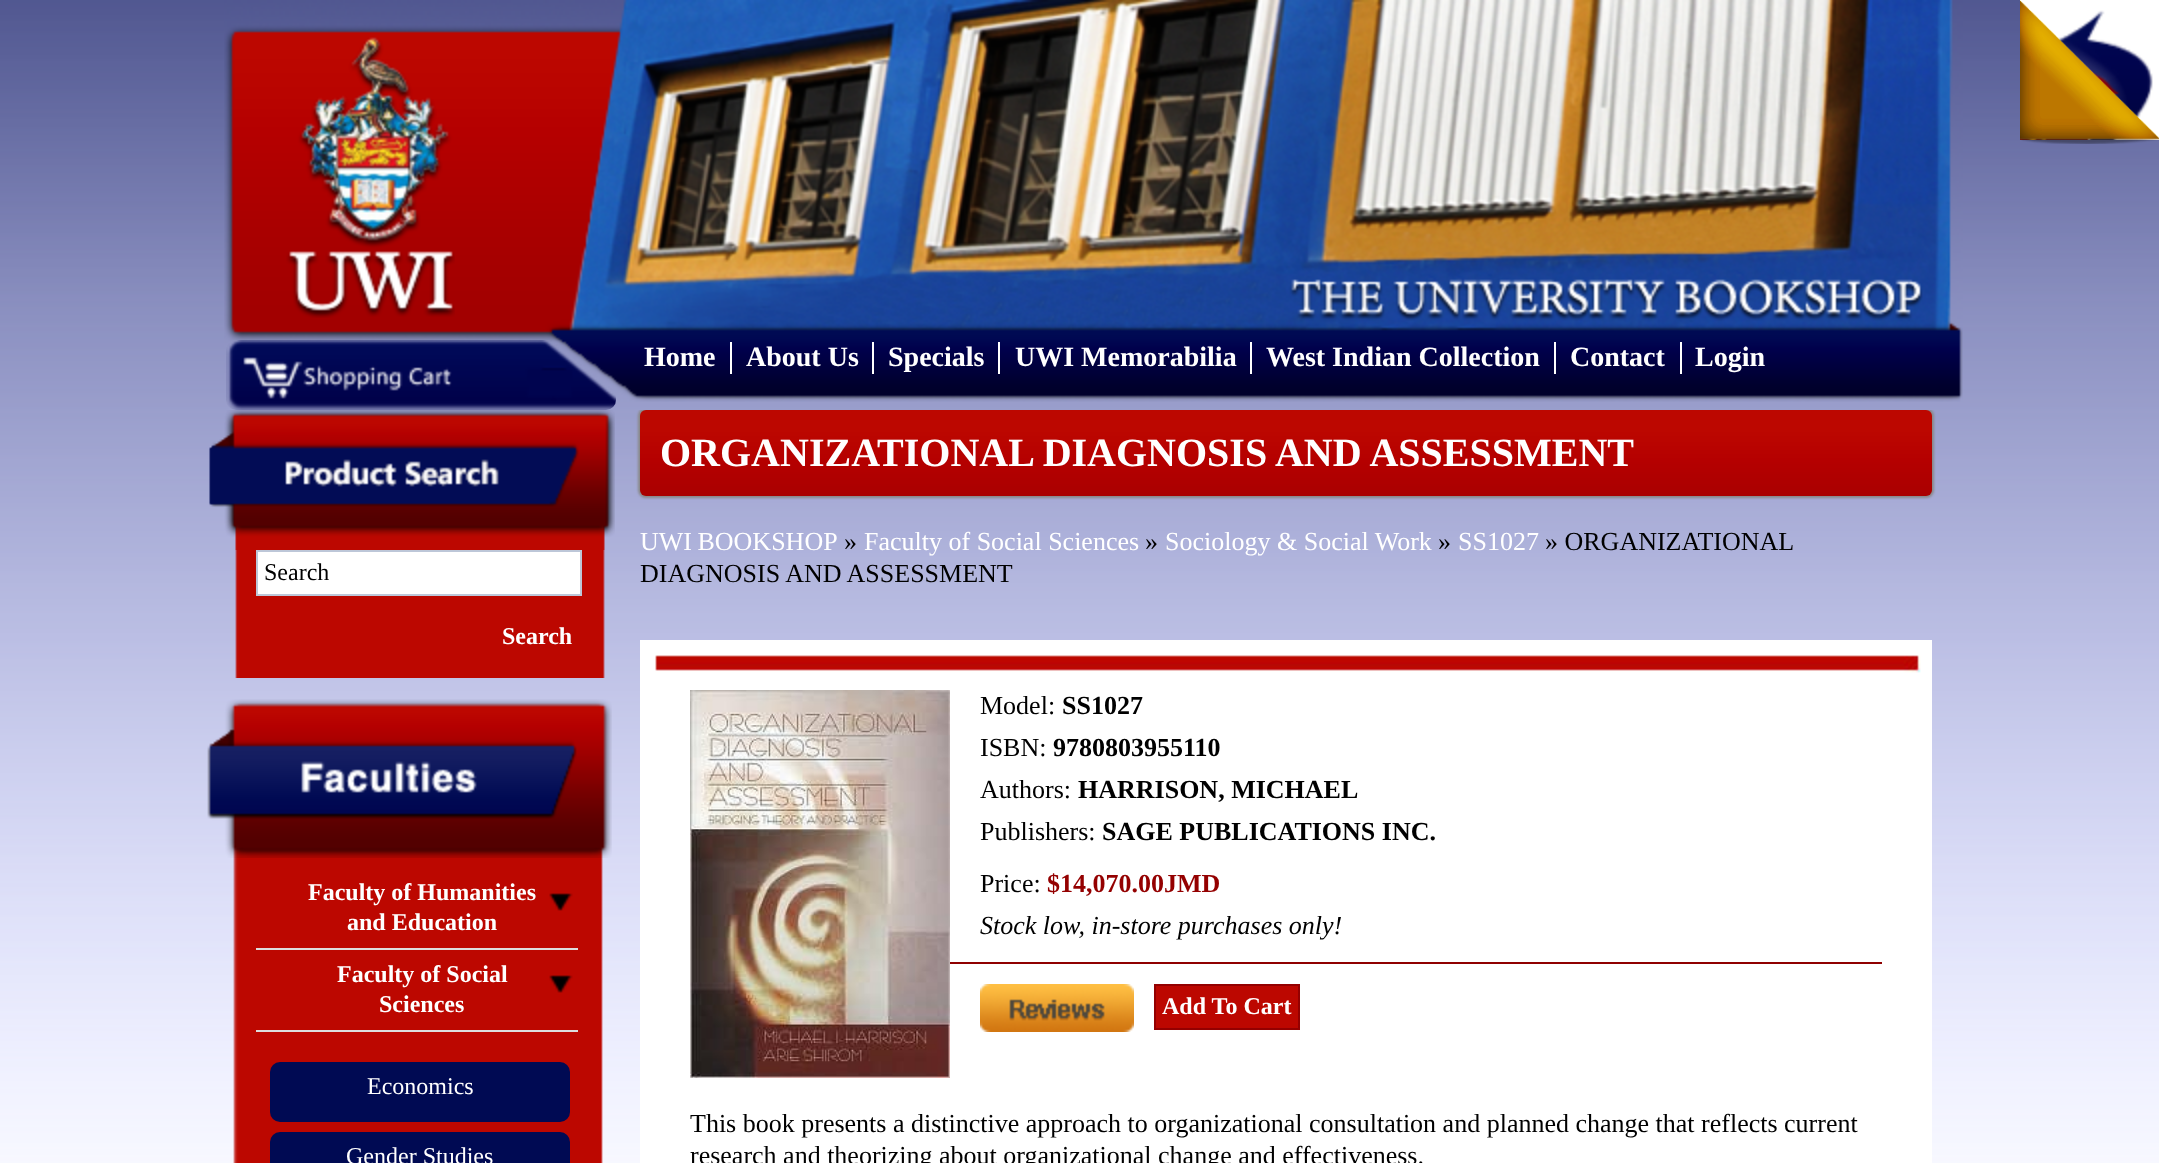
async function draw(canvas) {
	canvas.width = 2159;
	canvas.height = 1163;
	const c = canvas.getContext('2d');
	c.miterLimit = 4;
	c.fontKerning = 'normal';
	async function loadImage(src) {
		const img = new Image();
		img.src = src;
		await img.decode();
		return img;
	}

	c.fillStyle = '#fff';
	c.fillRect(0, 0, 2159, 1163);
	c.drawImage(await loadImage('img1.png'), 0, 0, 2159, 1163);
	c.fillRect(2020, 0, 139, 140);
	c.drawImage(await loadImage('img2.png'), 2020, 10, 133, 130);
	c.drawImage(await loadImage('img3.png'), 2020, 0, 139, 144);
	c.drawImage(await loadImage('img4.png'), 224, 0, 1739, 402);
	c.drawImage(await loadImage('img5.png'), 286, 37, 169, 281);
	c.drawImage(await loadImage('img6.png'), 226, 340, 390, 70);
	c.drawImage(await loadImage('img7.png'), 243, 357, 209, 42);
	c.font = 'bold 28px Liberation Serif';
	c.fillText('Home', 644, 366);
	c.fillRect(730, 342, 2, 32);
	c.fillText('About Us', 746, 366);
	c.fillRect(872, 342, 2, 32);
	c.fillText('Specials', 888, 366);
	c.fillRect(998, 342, 2, 32);
	c.fillText('UWI Memorabilia', 1015, 366);
	c.fillRect(1250, 342, 2, 32);
	c.fillText('West Indian Collection', 1266, 366);
	c.fillRect(1554, 342, 2, 32);
	c.fillText('Contact', 1570, 366);
	c.fillRect(1680, 342, 2, 32);
	c.fillText('Login', 1695, 366);
	c.drawImage(await loadImage('img8.png'), 209, 410, 406, 140);
	c.drawImage(await loadImage('img9.png'), 209, 410, 406, 130);
	c.drawImage(await loadImage('img10.png'), 235, 540, 370, 138);
	c.beginPath();
	c.rect(257, 551, 324, 44);
	c.fill();
	c.strokeStyle = '#bdc7d8';
	c.lineWidth = 2;
	c.stroke();
	c.font = '24px Liberation Serif';
	c.fillStyle = '#000';
	c.fillText('Search', 264, 580);
	c.font = 'bold 24px Liberation Serif';
	c.fillStyle = '#fff';
	c.fillText('Search', 502, 644);
	c.drawImage(await loadImage('img11.png'), 207, 699, 405, 159);
	c.drawImage(await loadImage('img12.png'), 233, 858, 370, 305);
	c.drawImage(await loadImage('img13.png'), 549, 893, 24, 18);
	c.fillStyle = '#ddd';
	c.fillRect(256, 948, 322, 2);
	c.fillStyle = '#fff';
	c.fillText('Faculty of Humanities', 308, 900);
	c.fillText('and Education', 347, 930);
	c.drawImage(await loadImage('img13.png'), 549, 975, 24, 18);
	c.fillStyle = '#ddd';
	c.fillRect(256, 1030, 322, 2);
	c.fillStyle = '#fff';
	c.fillText('Faculty of Social', 337, 982);
	c.fillText('Sciences', 379, 1012);
	c.fillStyle = '#000a53';
	c.beginPath();
	c.roundRect(270, 1062, 300, 60, 10);
	c.fill();
	c.font = '24px Liberation Serif';
	c.fillStyle = '#fff';
	c.fillText('Economics', 367, 1094);
	c.fillStyle = '#000a53';
	c.beginPath();
	c.roundRect(270, 1132, 300, 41, 10);
	c.fill();
	c.fillStyle = '#fff';
	c.fillText('Gender Studies', 346, 1164);
	c.save();
	c.beginPath();
	c.rect(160, 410, 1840, 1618);
	c.clip();
	c.fillStyle = '#888';
	c.filter = 'blur(1px)';
	c.beginPath();
	c.roundRect(638, 408, 1296, 90, 8);
	c.fill();
	c.filter = 'none';
	c.restore();
	c.drawImage(await loadImage('img14.png'), 640, 410, 1292, 86);
	c.font = 'bold 40px Liberation Serif';
	c.fillText('ORGANIZATIONAL DIAGNOSIS AND ASSESSMENT', 660, 466);
	c.wordSpacing = '-1px';
	c.font = '26px Liberation Serif';
	c.fillText('UWI BOOKSHOP', 640, 550);
	c.wordSpacing = '0px';
	c.fillStyle = '#000';
	c.fillText('»', 844, 550);
	c.fillStyle = '#fff';
	c.fillText('Faculty of Social Sciences', 864, 550);
	c.fillStyle = '#000';
	c.fillText('»', 1145, 550);
	c.fillStyle = '#fff';
	c.fillText('Sociology & Social Work', 1165, 550);
	c.fillStyle = '#000';
	c.fillText('»', 1438, 550);
	c.fillStyle = '#fff';
	c.fillText('SS1027', 1458, 550);
	c.fillStyle = '#000';
	c.fillText('» ORGANIZATIONAL', 1545, 550);
	c.fillText('DIAGNOSIS AND ASSESSMENT', 640, 582);
	c.fillStyle = '#fff';
	c.fillRect(640, 640, 1292, 523);
	c.drawImage(await loadImage('img15.png'), 655, 655, 1266, 18);
	c.drawImage(await loadImage('img16.png'), 690, 690, 260, 388);
	c.fillStyle = '#000';
	c.fillText('Model:', 980, 714);
	c.font = 'bold 26px Liberation Serif';
	c.fillText('SS1027', 1062, 714);
	c.font = '26px Liberation Serif';
	c.fillText('ISBN:', 980, 756);
	c.font = 'bold 26px Liberation Serif';
	c.fillText('9780803955110', 1053, 756);
	c.font = '26px Liberation Serif';
	c.fillText('Authors:', 980, 798);
	c.font = 'bold 26px Liberation Serif';
	c.fillText('HARRISON, MICHAEL', 1078, 798);
	c.font = '26px Liberation Serif';
	c.fillText('Publishers:', 980, 840);
	c.font = 'bold 26px Liberation Serif';
	c.fillText('SAGE PUBLICATIONS INC.', 1102, 840);
	c.font = '26px Liberation Serif';
	c.fillText('Price:', 980, 892);
	c.font = 'bold 26px Liberation Serif';
	c.fillStyle = '#940000';
	c.fillText('$14,070.00JMD', 1047, 892);
	c.font = 'italic 26px Liberation Serif';
	c.fillStyle = '#000';
	c.fillText('Stock low, in-store purchases only!', 980, 934);
	c.fillStyle = '#8f0000';
	c.fillRect(950, 962, 932, 2);
	c.drawImage(await loadImage('img17.png'), 980, 984, 154, 48);
	c.fillStyle = '#bc0700';
	c.beginPath();
	c.rect(1155, 985, 144, 44);
	c.fill();
	c.strokeStyle = '#940000';
	c.stroke();
	c.font = 'bold 24px Liberation Serif';
	c.fillStyle = '#fff';
	c.fillText('Add To Cart', 1162, 1014);
	c.font = '26px Liberation Serif';
	c.fillStyle = '#000';
	c.fillText('This book presents a distinctive approach to organizational consultation and planned change that reflects current', 690, 1132);
	c.fillText('research and theorizing about organizational change and effectiveness.', 690, 1164);
}

draw(document.querySelector('canvas'));
